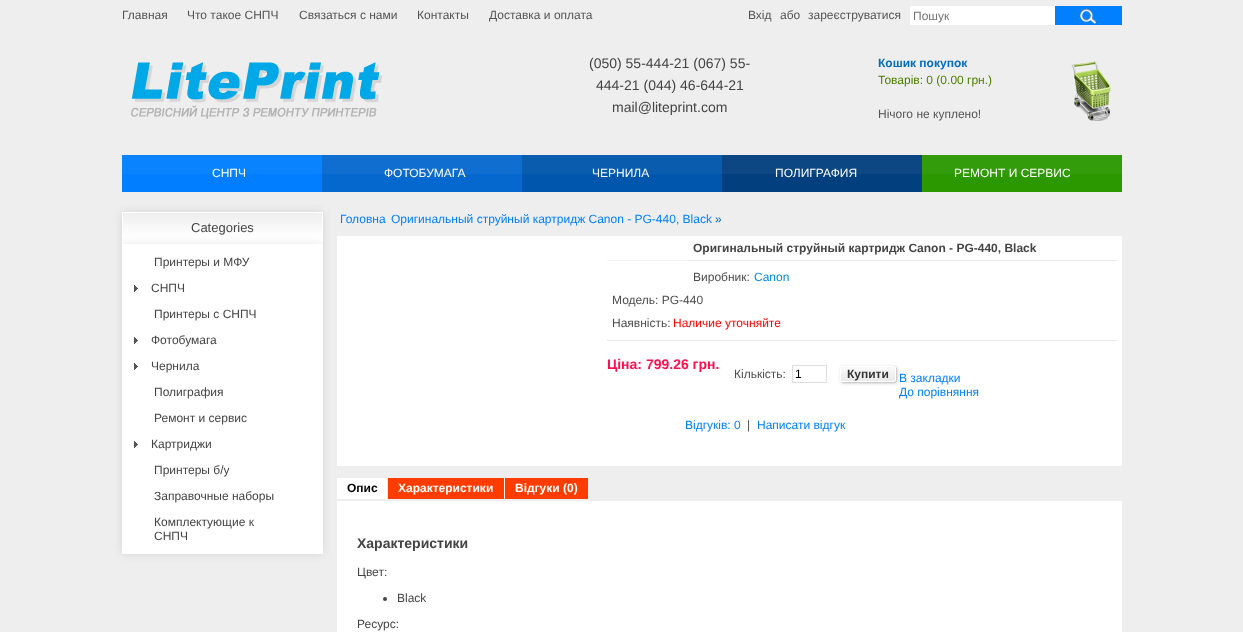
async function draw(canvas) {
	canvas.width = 1243;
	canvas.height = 632;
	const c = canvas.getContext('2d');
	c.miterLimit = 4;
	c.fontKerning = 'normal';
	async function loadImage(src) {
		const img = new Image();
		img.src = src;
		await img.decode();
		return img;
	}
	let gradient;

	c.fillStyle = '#eee';
	c.fillRect(0, 0, 1243, 632);
	c.font = '12px Liberation Sans';
	c.fillStyle = '#555';
	for (const [text, x, y] of [
		['Главная', 122, 19],
		['Что такое СНПЧ', 187, 19],
		['Связаться с нами', 299, 19],
		['Контакты', 417, 19],
		['Доставка и оплата', 489, 19],
		['Вхід', 748, 19],
		['або', 780, 19],
		['зареєструватися', 808, 19],
	]) {
		c.fillText(text, x, y);
	}
	c.fillStyle = '#fff';
	c.fillRect(910, 6, 145, 19);
	c.fillStyle = '#757575';
	c.fillText('Пошук', 913, 20);
	c.fillStyle = '#007fff';
	c.fillRect(1055, 6, 67, 19);
	c.drawImage(await loadImage('img1.png'), 1079, 8, 18, 16);
	c.drawImage(await loadImage('img2.png'), 131, 62, 251, 57);
	c.font = '14px Liberation Sans';
	c.fillStyle = '#444';
	for (const [text, x, y] of [
		['(050) 55-444-21 (067) 55-', 589, 68],
		['444-21 (044) 46-644-21', 596, 90],
		['mail@liteprint.com', 612, 112],
	]) {
		c.fillText(text, x, y);
	}
	c.font = 'bold 12px Liberation Sans';
	c.fillStyle = '#006dc2';
	c.fillText('Кошик покупок', 878, 67);
	c.font = '12px Liberation Sans';
	c.fillStyle = '#4b8000';
	c.fillText('Товарів: 0 (0.00 грн.)', 878, 84);
	c.fillStyle = '#555';
	c.fillText('Нічого не куплено!', 878, 118);
	c.drawImage(await loadImage('img3.png'), 1071, 61, 40, 60);
	c.drawImage(await loadImage('img4.png'), 122, 155, 1000, 37);
	c.fillStyle = '#fff';
	for (const [text, x, y] of [
		['СНПЧ', 212, 177],
		['ФОТОБУМАГА', 384, 177],
		['ЧЕРНИЛА', 592, 177],
		['ПОЛИГРАФИЯ', 775, 177],
		['РЕМОНТ И СЕРВИС', 954, 177],
	]) {
		c.fillText(text, x, y);
	}
	c.fillStyle = '#0000001a';
	c.filter = 'blur(4px)';
	c.beginPath();
	c.rect(122, 212, 201, 32);
	c.fill();
	c.filter = 'none';
	gradient = c.createLinearGradient(223, 213, 223, 243);
	gradient.addColorStop(0, '#eee');
	gradient.addColorStop(0.8, '#fff');
	c.fillStyle = gradient;
	c.fillRect(123, 213, 199, 30);
	c.strokeStyle = '#fff';
	c.strokeRect(122.5, 212.5, 200, 31);
	c.font = '13px Liberation Sans';
	c.fillStyle = '#444';
	c.fillText('Categories', 191, 232);
	c.fillStyle = '#0000001a';
	c.filter = 'blur(4px)';
	c.beginPath();
	c.rect(122, 244, 201, 310);
	c.fill();
	c.filter = 'none';
	c.fillStyle = '#fff';
	c.fillRect(122, 244, 201, 310);
	c.font = '12px Liberation Sans';
	c.fillStyle = '#444';
	c.fillText('Принтеры и МФУ', 154, 266);
	c.drawImage(await loadImage('img5.png'), 134, 285, 4, 7);
	c.fillText('СНПЧ', 151, 292);
	c.fillText('Принтеры с СНПЧ', 154, 318);
	c.drawImage(await loadImage('img5.png'), 134, 337, 4, 7);
	c.fillText('Фотобумага', 151, 344);
	c.drawImage(await loadImage('img5.png'), 134, 363, 4, 7);
	for (const [text, x, y] of [
		['Чернила', 151, 370],
		['Полиграфия', 154, 396],
		['Ремонт и сервис', 154, 422],
	]) {
		c.fillText(text, x, y);
	}
	c.drawImage(await loadImage('img5.png'), 134, 441, 4, 7);
	for (const [text, x, y] of [
		['Картриджи', 151, 448],
		['Принтеры б/у', 154, 474],
		['Заправочные наборы', 154, 500],
		['Комплектующие к', 154, 526],
		['СНПЧ', 154, 540],
	]) {
		c.fillText(text, x, y);
	}
	c.fillStyle = '#007fff';
	c.fillText('Головна', 340, 223);
	c.fillText('Оригинальный струйный картридж Canon - PG-440, Black', 391, 223);
	c.fillStyle = '#0064b4';
	c.fillText('»', 715, 223);
	c.fillStyle = '#fff';
	c.fillRect(337, 236, 785, 230);
	c.font = 'bold 12px Liberation Sans';
	c.fillStyle = '#444';
	c.fillText('Оригинальный струйный картридж Canon - PG-440, Black', 693, 252);
	for (const [x, y, w, h, color] of [
		[688, 260, 429, 1, '#e7e7e7'],
		[607, 260, 81, 1, '#f3f3f3'],
		[607, 340, 510, 1, '#e7e7e7'],
	]) {
		c.fillStyle = color;
		c.fillRect(x, y, w, h);
	}
	c.font = '12px Liberation Sans';
	c.fillStyle = '#4d4d4d';
	c.fillText('Виробник:', 693, 281);
	c.fillStyle = '#008ae2';
	c.fillText('Canon', 754, 281);
	c.fillStyle = '#4d4d4d';
	c.fillText('Модель: PG-440', 612, 304);
	c.fillText('Наявність:', 612, 327);
	c.fillStyle = '#f00';
	c.fillText('Наличие уточняйте', 673, 327);
	c.font = 'bold 14px Liberation Sans';
	c.fillStyle = '#ff0f50';
	c.fillText('Ціна: 799.26 грн.', 607, 369);
	c.font = '12px Liberation Sans';
	c.fillStyle = '#4d4d4d';
	c.fillText('Кількість:', 734, 378);
	c.strokeStyle = '#ddd';
	c.strokeRect(792.5, 365.5, 34, 17);
	c.fillStyle = '#000';
	c.fillText('1', 795, 378);
	c.fillStyle = '#0000004d';
	c.filter = 'blur(1.5px)';
	c.beginPath();
	c.roundRect(841, 367, 56, 16, 2);
	c.fill();
	c.filter = 'none';
	c.save();
	c.beginPath();
	c.roundRect(840, 366, 56, 16, 2);
	c.clip();
	gradient = c.createLinearGradient(868, 367, 868, 381);
	gradient.addColorStop(0.05, '#f9f9f9');
	gradient.addColorStop(1, '#e9e9e9');
	c.fillStyle = gradient;
	c.fillRect(840, 367, 56, 14);
	c.restore();
	c.beginPath();
	c.roundRect(840.5, 366.5, 55, 15, 1.5);
	c.strokeStyle = '#fff';
	c.stroke();
	c.font = 'bold 12px Liberation Sans';
	c.fillStyle = '#333';
	c.fillText('Купити', 847, 378);
	c.font = '12px Liberation Sans';
	c.fillStyle = '#007fff';
	for (const [text, x, y] of [
		['В закладки', 899, 382],
		['До порівняння', 899, 396],
		['Відгуків: 0', 685, 429],
	]) {
		c.fillText(text, x, y);
	}
	c.fillStyle = '#4d4d4d';
	c.fillText('|', 747, 429);
	c.fillStyle = '#007fff';
	c.fillText('Написати відгук', 757, 429);
	c.fillStyle = '#fff';
	c.fillRect(337, 478, 50, 21);
	c.font = 'bold 12px Liberation Sans';
	c.fillStyle = '#000';
	c.fillText('Опис', 347, 492);
	c.fillStyle = '#ff3c00';
	c.fillRect(388, 478, 116, 21);
	c.fillStyle = '#fff';
	c.fillText('Характеристики', 398, 492);
	c.fillStyle = '#ff3c00';
	c.fillRect(505, 478, 83, 21);
	c.fillStyle = '#fff';
	c.fillText('Відгуки (0)', 515, 492);
	c.fillRect(337, 501, 785, 131);
	c.font = 'bold 14px Liberation Sans';
	c.fillStyle = '#444';
	c.fillText('Характеристики', 357, 548);
	c.font = '12px Liberation Sans';
	c.fillText('Цвет:', 357, 576);
	c.beginPath();
	c.arc(385, 599, 2, 0, 2 * Math.PI);
	c.fill();
	c.fillText('Black', 397, 602);
	c.fillText('Ресурс:', 357, 628);
}

draw(document.querySelector('canvas'));
